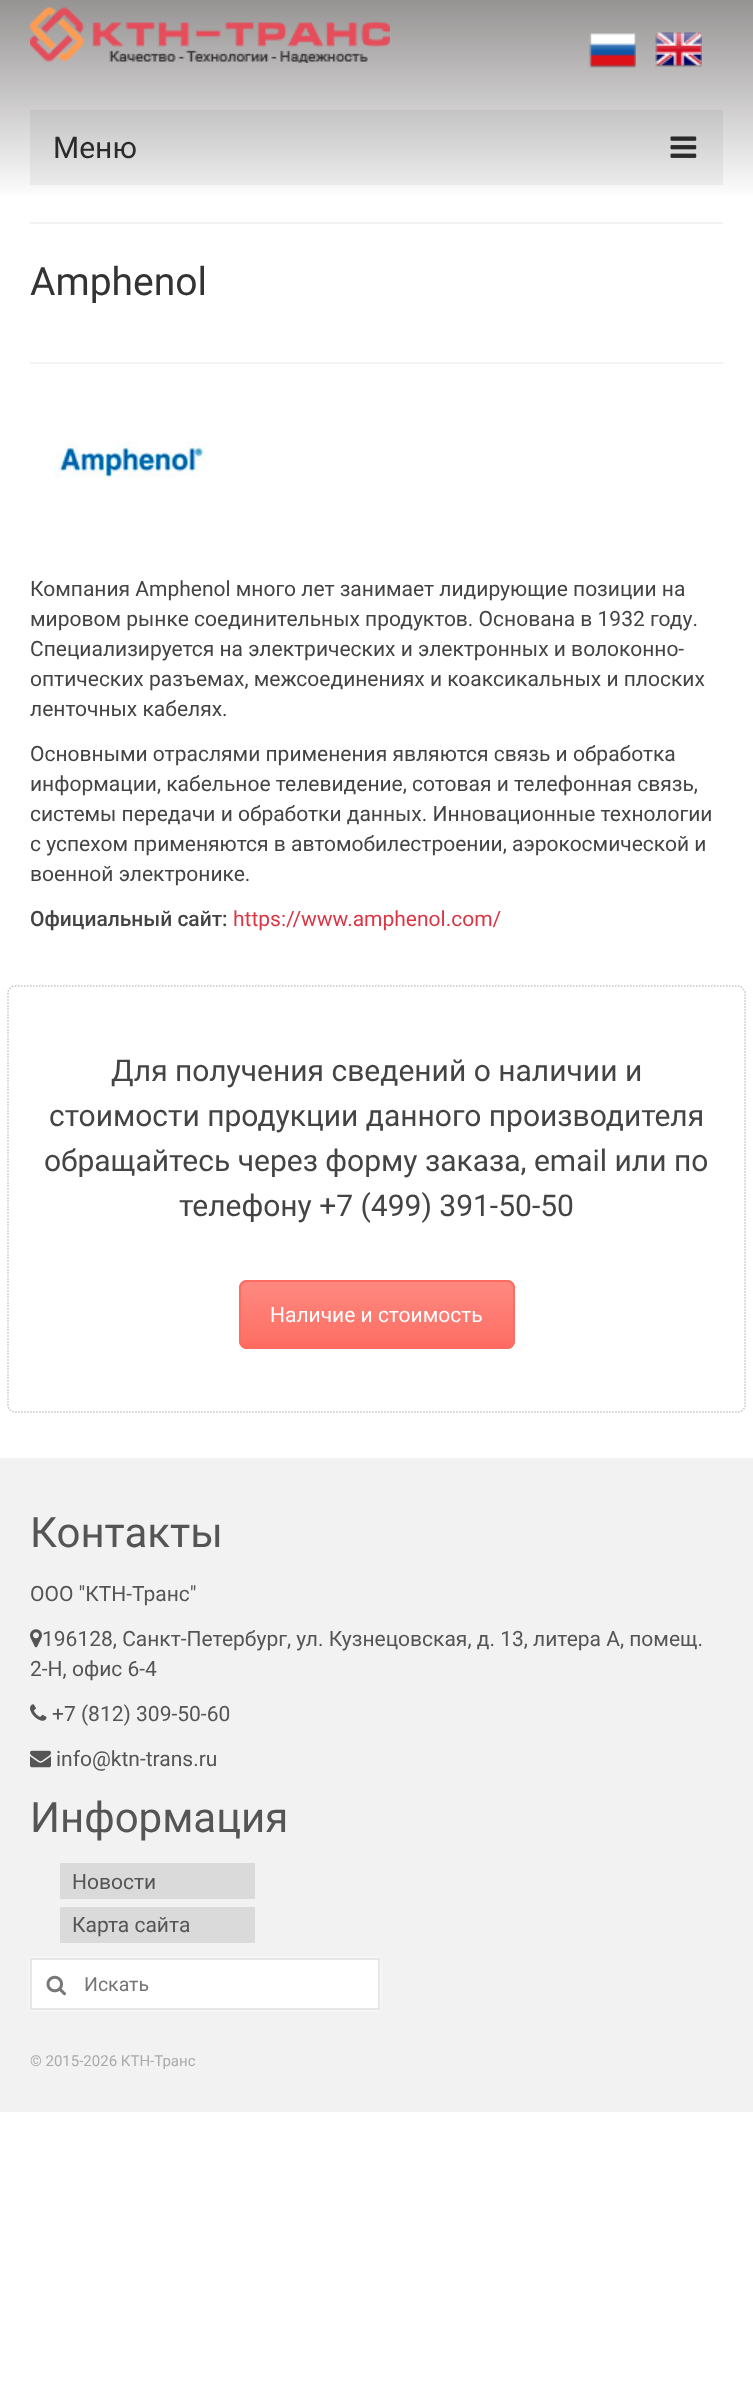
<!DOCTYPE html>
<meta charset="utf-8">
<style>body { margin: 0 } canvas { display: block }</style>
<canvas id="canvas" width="753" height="2401"></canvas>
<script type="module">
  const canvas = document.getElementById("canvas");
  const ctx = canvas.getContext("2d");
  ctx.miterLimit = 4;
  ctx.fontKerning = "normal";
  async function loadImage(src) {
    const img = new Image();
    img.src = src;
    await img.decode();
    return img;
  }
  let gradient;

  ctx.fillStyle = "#ffffff";
  ctx.fillRect(0, 0, 753, 2401);
  gradient = ctx.createLinearGradient(377, 0, 377, 200);
  gradient.addColorStop(0, "#969393");
  gradient.addColorStop(1, "#ffffff");
  ctx.fillStyle = gradient;
  ctx.fillRect(0, 0, 753, 195);
  gradient = ctx.createLinearGradient(377, 0, 377, 200);
  gradient.addColorStop(0, "#8f8c8c");
  gradient.addColorStop(1, "#f2f2f2");
  ctx.fillStyle = gradient;
  ctx.fillRect(30, 110, 693, 75);
  ctx.drawImage(await loadImage("img1.png"), 30, 7, 360, 56);
  ctx.drawImage(await loadImage("img2.png"), 589, 33, 47, 35);
  ctx.drawImage(await loadImage("img3.png"), 655, 32, 47, 35);
  ctx.font = "30px Roboto";
  ctx.fillStyle = "#2b2b2b";
  ctx.fillText("Меню", 53, 158);
  ctx.drawImage(await loadImage("img4.png"), 670, 136, 27, 22);
  ctx.fillStyle = "#f2f2f2";
  ctx.fillRect(30, 222, 693, 2);
  ctx.fillRect(30, 362, 693, 2);
  ctx.font = "39px Roboto";
  ctx.fillStyle = "#333333";
  ctx.fillText("Amphenol", 30, 295);
  ctx.drawImage(await loadImage("img5.png"), 54, 441, 156, 37);
  ctx.font = "21px Roboto";
  ctx.fillStyle = "#444444";
  ctx.fillText("Компания Amphenol много лет занимает лидирующие позиции на", 30, 596);
  ctx.fillText("мировом рынке соединительных продуктов. Основана в 1932 году.", 30, 626);
  ctx.fillText("Специализируется на электрических и электронных и волоконно-", 30, 656);
  ctx.fillText("оптических разъемах, межсоединениях и коаксикальных и плоских", 30, 686);
  ctx.fillText("ленточных кабелях.", 30, 716);
  ctx.fillText("Основными отраслями применения являются связь и обработка", 30, 761);
  ctx.fillText("информации, кабельное телевидение, сотовая и телефонная связь,", 30, 791);
  ctx.fillText("системы передачи и обработки данных. Инновационные технологии", 30, 821);
  ctx.fillText("с успехом применяются в автомобилестроении, аэрокосмической и", 30, 851);
  ctx.fillText("военной электронике.", 30, 881);
  ctx.font = "500 21px Roboto";
  ctx.fillText("Официальный сайт:", 30, 926);
  ctx.font = "21px Roboto";
  ctx.fillStyle = "#db3646";
  ctx.fillText("https://www.amphenol.com/", 233, 926);
  ctx.beginPath();
  ctx.moveTo(15, 986);
  ctx.lineTo(738, 986);
  ctx.bezierCurveTo(741.5, 986, 745, 989.5, 745, 993);
  ctx.lineTo(745, 1405.5);
  ctx.bezierCurveTo(745, 1409, 741.5, 1412, 738, 1412);
  ctx.lineTo(15, 1412);
  ctx.bezierCurveTo(11.5, 1412, 8, 1409, 8, 1405.5);
  ctx.lineTo(8, 993);
  ctx.bezierCurveTo(8, 989.5, 11.5, 986, 15, 986);
  ctx.closePath();
  ctx.strokeStyle = "#c4c4c4";
  ctx.lineWidth = 1.5;
  ctx.setLineDash([1.5, 1.5]);
  ctx.stroke();
  ctx.font = "30px Roboto";
  ctx.fillStyle = "#444444";
  ctx.fillText("Для получения сведений о наличии и", 111, 1081);
  ctx.fillText("стоимости продукции данного производителя", 49, 1126);
  ctx.fillText("обращайтесь через форму заказа, email или по", 44, 1171);
  ctx.fillText("телефону +7 (499) 391-50-50", 179, 1216);
  ctx.fillStyle = "#fe6c61";
  ctx.beginPath();
  ctx.roundRect(239, 1280, 276, 69, 8);
  ctx.fill();
  ctx.save();
  ctx.beginPath();
  ctx.roundRect(239, 1280, 276, 69, 8);
  ctx.clip();
  gradient = ctx.createLinearGradient(377, 1281, 377, 1347);
  gradient.addColorStop(0, "rgba(255, 255, 255, 0.2)");
  gradient.addColorStop(1, "rgba(255, 255, 255, 0.01)");
  ctx.fillStyle = gradient;
  ctx.fillRect(239, 1281, 276, 62);
  ctx.restore();
  ctx.beginPath();
  ctx.roundRect(240, 1281, 274, 67, 7);
  ctx.strokeStyle = "#fe6c61";
  ctx.lineWidth = 2;
  ctx.setLineDash([]);
  ctx.stroke();
  ctx.font = "21px Roboto";
  ctx.fillStyle = "#ffffff";
  ctx.fillText("Наличие и стоимость", 270, 1322);
  ctx.fillStyle = "#f2f2f2";
  ctx.fillRect(0, 1458, 753, 654);
  ctx.font = "42px Roboto";
  ctx.fillStyle = "#555555";
  ctx.fillText("Контакты", 30, 1547);
  ctx.font = "21px Roboto";
  ctx.fillText("ООО \"КТН-Транс\"", 30, 1601);
  ctx.drawImage(await loadImage("img6.png"), 30, 1629, 12, 19);
  ctx.fillText("196128, Санкт-Петербург, ул. Кузнецовская, д. 13, литера А, помещ.", 42, 1646);
  ctx.fillText("2-Н, офис 6-4", 30, 1676);
  ctx.drawImage(await loadImage("img7.png"), 30, 1704, 17, 17);
  ctx.fillText("+7 (812) 309-50-60", 52, 1721);
  ctx.drawImage(await loadImage("img8.png"), 30, 1750, 21, 18);
  ctx.fillText("info@ktn-trans.ru", 56, 1766);
  ctx.font = "42px Roboto";
  ctx.fillText("Информация", 30, 1832);
  ctx.fillStyle = "#dadada";
  ctx.fillRect(60, 1863, 195, 36);
  ctx.font = "21px Roboto";
  ctx.fillStyle = "#555555";
  ctx.fillText("Новости", 72, 1889);
  ctx.fillStyle = "#dadada";
  ctx.fillRect(60, 1907, 195, 36);
  ctx.fillStyle = "#555555";
  ctx.fillText("Карта сайта", 72, 1932);
  ctx.fillStyle = "#ffffff";
  ctx.filter = "blur(2px)";
  ctx.beginPath();
  ctx.rect(30, 1958, 350, 52);
  ctx.fill();
  ctx.filter = "none";
  ctx.strokeStyle = "#e7e7e7";
  ctx.strokeRect(31, 1959, 348, 50);
  ctx.drawImage(await loadImage("img9.png"), 46, 1975, 20, 21);
  ctx.font = "19.5px Roboto";
  ctx.fillStyle = "#757575";
  ctx.fillText("Искать", 84, 1991);
  ctx.font = "15px Roboto";
  ctx.fillStyle = "#aaaaaa";
  ctx.fillText("© 2015-2026 КТН-Транс", 30, 2066);
</script>
